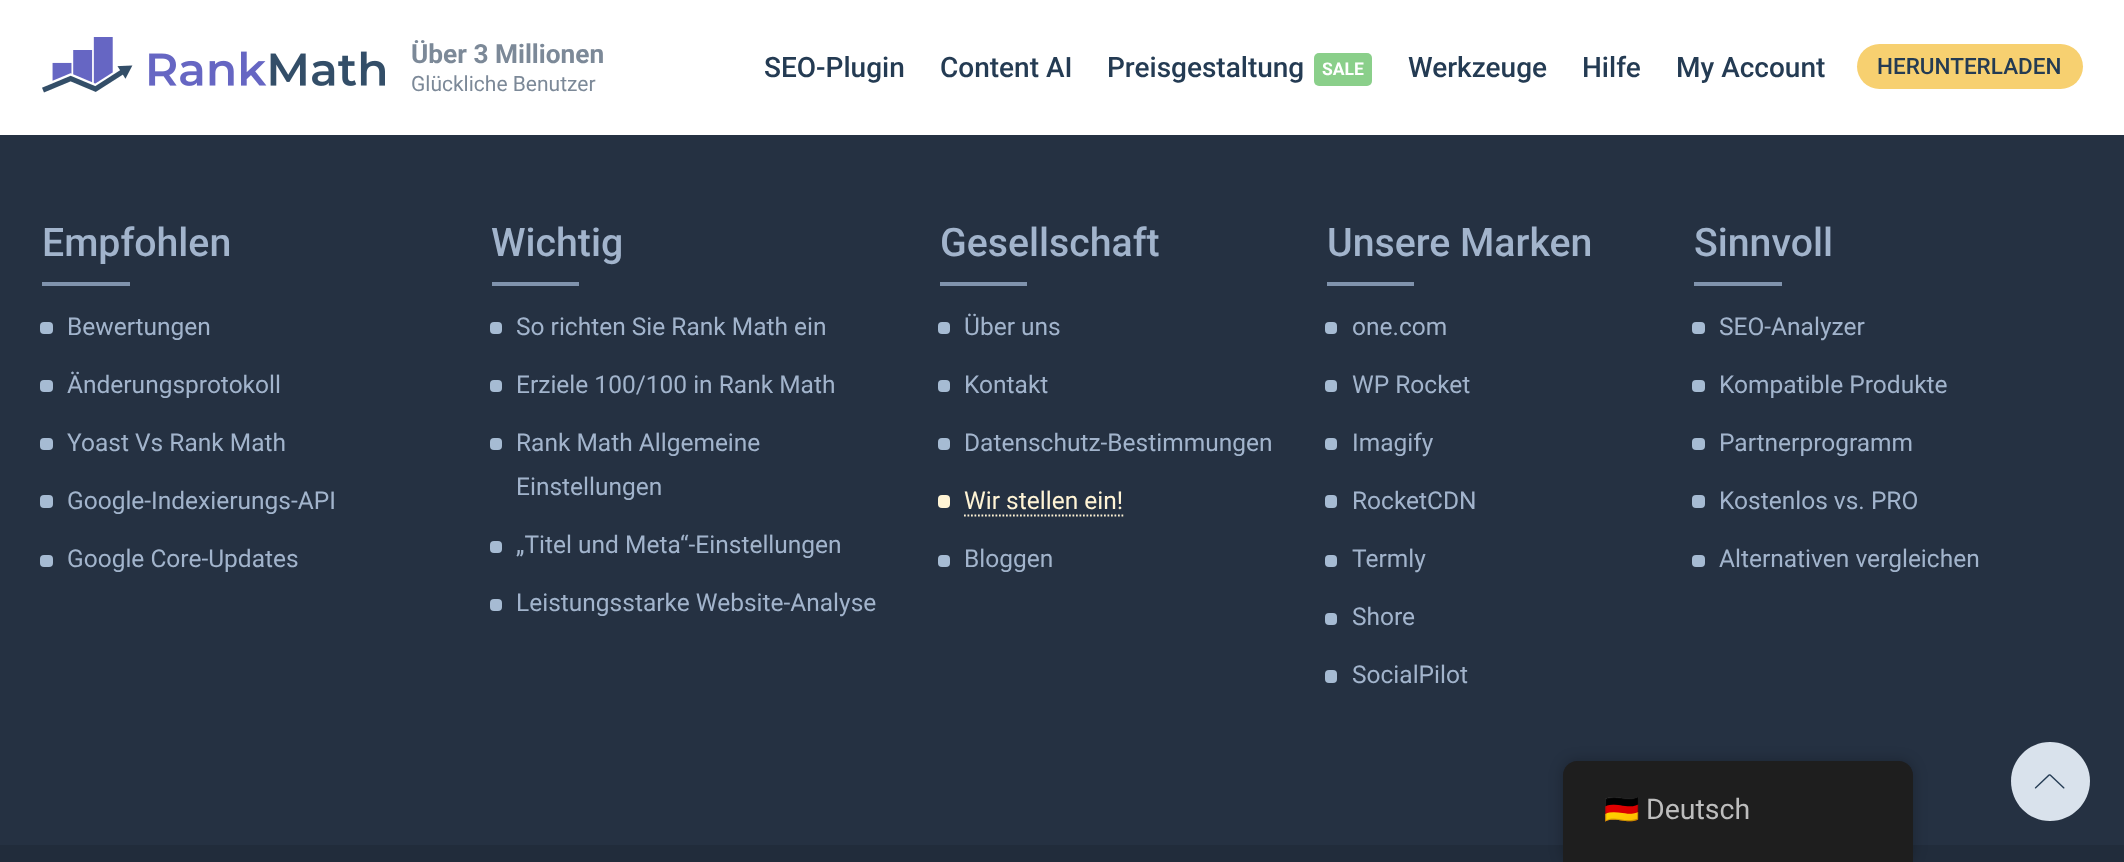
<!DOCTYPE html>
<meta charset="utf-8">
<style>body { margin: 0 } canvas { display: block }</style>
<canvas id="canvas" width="2124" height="862"></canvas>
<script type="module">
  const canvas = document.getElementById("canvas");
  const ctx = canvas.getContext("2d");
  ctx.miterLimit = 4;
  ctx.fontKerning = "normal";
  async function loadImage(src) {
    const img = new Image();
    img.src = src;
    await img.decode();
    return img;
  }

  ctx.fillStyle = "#253142";
  ctx.fillRect(0, 0, 2124, 862);
  ctx.fillStyle = "#ffffff";
  ctx.fillRect(0, 0, 2124, 135);
  ctx.drawImage(await loadImage("img1.png"), 42, 37, 343, 56);
  ctx.font = "bold 26.25px Roboto";
  ctx.fillStyle = "#7c8998";
  ctx.fillText("Über 3 Millionen", 411, 63);
  ctx.font = "21px Roboto";
  ctx.fillText("Glückliche Benutzer", 411, 91);
  ctx.font = "500 28px Roboto";
  ctx.fillStyle = "#243b53";
  ctx.fillText("SEO-Plugin", 764, 77);
  ctx.fillText("Content AI", 940, 77);
  ctx.fillText("Preisgestaltung", 1107, 77);
  ctx.fillStyle = "#8acf8a";
  ctx.beginPath();
  ctx.roundRect(1314, 53, 58, 33, 5);
  ctx.fill();
  ctx.font = "bold 17.5px Roboto";
  ctx.fillStyle = "#ffffff";
  ctx.fillText("SALE", 1322, 75);
  ctx.font = "500 28px Roboto";
  ctx.fillStyle = "#243b53";
  ctx.fillText("Werkzeuge", 1408, 77);
  ctx.fillText("Hilfe", 1582, 77);
  ctx.fillText("My Account", 1676, 77);
  ctx.fillStyle = "#f7d070";
  ctx.beginPath();
  ctx.roundRect(1857, 44, 226, 45, 22.5);
  ctx.fill();
  ctx.font = "500 22.5px Roboto";
  ctx.fillStyle = "#243b53";
  ctx.fillText("HERUNTERLADEN", 1877, 74);
  ctx.font = "500 39.25px Roboto";
  ctx.fillStyle = "#a2b4cc";
  ctx.fillText("Empfohlen", 42, 256);
  ctx.fillStyle = "#8093ad";
  ctx.fillRect(42, 282, 88, 4);
  ctx.fillStyle = "#a6bbd3";
  ctx.beginPath();
  ctx.roundRect(40, 322, 13, 12, 4);
  ctx.fill();
  ctx.font = "24.5px Roboto";
  ctx.fillStyle = "#a2b4cc";
  ctx.fillText("Bewertungen", 67, 335);
  ctx.fillStyle = "#a6bbd3";
  ctx.beginPath();
  ctx.roundRect(40, 380, 13, 12, 4);
  ctx.fill();
  ctx.fillStyle = "#a2b4cc";
  ctx.fillText("Änderungsprotokoll", 67, 393);
  ctx.fillStyle = "#a6bbd3";
  ctx.beginPath();
  ctx.roundRect(40, 438, 13, 12, 4);
  ctx.fill();
  ctx.fillStyle = "#a2b4cc";
  ctx.fillText("Yoast Vs Rank Math", 67, 451);
  ctx.fillStyle = "#a6bbd3";
  ctx.beginPath();
  ctx.roundRect(40, 495, 13, 13, 4);
  ctx.fill();
  ctx.fillStyle = "#a2b4cc";
  ctx.fillText("Google-Indexierungs-API", 67, 509);
  ctx.fillStyle = "#a6bbd3";
  ctx.beginPath();
  ctx.roundRect(40, 555, 13, 12, 4);
  ctx.fill();
  ctx.fillStyle = "#a2b4cc";
  ctx.fillText("Google Core-Updates", 67, 567);
  ctx.font = "500 39.25px Roboto";
  ctx.fillText("Wichtig", 491, 256);
  ctx.fillStyle = "#8093ad";
  ctx.fillRect(492, 282, 87, 4);
  ctx.fillStyle = "#a6bbd3";
  ctx.beginPath();
  ctx.roundRect(490, 322, 12, 12, 4);
  ctx.fill();
  ctx.font = "24.5px Roboto";
  ctx.fillStyle = "#a2b4cc";
  ctx.fillText("So richten Sie Rank Math ein", 516, 335);
  ctx.fillStyle = "#a6bbd3";
  ctx.beginPath();
  ctx.roundRect(490, 380, 12, 12, 4);
  ctx.fill();
  ctx.fillStyle = "#a2b4cc";
  ctx.fillText("Erziele 100/100 in Rank Math", 516, 393);
  ctx.fillStyle = "#a6bbd3";
  ctx.beginPath();
  ctx.roundRect(490, 438, 12, 12, 4);
  ctx.fill();
  ctx.fillStyle = "#a2b4cc";
  ctx.fillText("Rank Math Allgemeine", 516, 451);
  ctx.fillText("Einstellungen", 516, 495);
  ctx.fillStyle = "#a6bbd3";
  ctx.beginPath();
  ctx.roundRect(490, 541, 12, 12, 4);
  ctx.fill();
  ctx.fillStyle = "#a2b4cc";
  ctx.fillText("„Titel und Meta“-Einstellungen", 516, 553);
  ctx.fillStyle = "#a6bbd3";
  ctx.beginPath();
  ctx.roundRect(490, 599, 12, 12, 4);
  ctx.fill();
  ctx.fillStyle = "#a2b4cc";
  ctx.fillText("Leistungsstarke Website-Analyse", 516, 611);
  ctx.font = "500 39.25px Roboto";
  ctx.fillText("Gesellschaft", 940, 256);
  ctx.fillStyle = "#8093ad";
  ctx.fillRect(940, 282, 87, 4);
  ctx.fillStyle = "#a6bbd3";
  ctx.beginPath();
  ctx.roundRect(938, 322, 12, 12, 4);
  ctx.fill();
  ctx.font = "24.5px Roboto";
  ctx.fillStyle = "#a2b4cc";
  ctx.fillText("Über uns", 964, 335);
  ctx.fillStyle = "#a6bbd3";
  ctx.beginPath();
  ctx.roundRect(938, 380, 12, 12, 4);
  ctx.fill();
  ctx.fillStyle = "#a2b4cc";
  ctx.fillText("Kontakt", 964, 393);
  ctx.fillStyle = "#a6bbd3";
  ctx.beginPath();
  ctx.roundRect(938, 438, 12, 12, 4);
  ctx.fill();
  ctx.fillStyle = "#a2b4cc";
  ctx.fillText("Datenschutz-Bestimmungen", 964, 451);
  ctx.fillStyle = "#fff4d5";
  ctx.beginPath();
  ctx.roundRect(938, 495, 12, 13, 4);
  ctx.fill();
  ctx.fillText("Wir stellen ein!", 964, 509);
  ctx.beginPath();
  ctx.moveTo(964, 515.5);
  ctx.lineTo(1123.5, 515.5);
  ctx.strokeStyle = "#fff4d5";
  ctx.lineWidth = 1.8;
  ctx.setLineDash([1.75, 1.75]);
  ctx.stroke();
  ctx.fillStyle = "#a6bbd3";
  ctx.beginPath();
  ctx.roundRect(938, 555, 12, 12, 4);
  ctx.fill();
  ctx.fillStyle = "#a2b4cc";
  ctx.fillText("Bloggen", 964, 567);
  ctx.font = "500 39.25px Roboto";
  ctx.fillText("Unsere Marken", 1327, 256);
  ctx.fillStyle = "#8093ad";
  ctx.fillRect(1327, 282, 87, 4);
  ctx.fillStyle = "#a6bbd3";
  ctx.beginPath();
  ctx.roundRect(1325, 322, 12, 12, 4);
  ctx.fill();
  ctx.font = "24.5px Roboto";
  ctx.fillStyle = "#a2b4cc";
  ctx.fillText("one.com", 1352, 335);
  ctx.fillStyle = "#a6bbd3";
  ctx.beginPath();
  ctx.roundRect(1325, 380, 12, 12, 4);
  ctx.fill();
  ctx.fillStyle = "#a2b4cc";
  ctx.fillText("WP Rocket", 1352, 393);
  ctx.fillStyle = "#a6bbd3";
  ctx.beginPath();
  ctx.roundRect(1325, 438, 12, 12, 4);
  ctx.fill();
  ctx.fillStyle = "#a2b4cc";
  ctx.fillText("Imagify", 1352, 451);
  ctx.fillStyle = "#a6bbd3";
  ctx.beginPath();
  ctx.roundRect(1325, 495, 12, 13, 4);
  ctx.fill();
  ctx.fillStyle = "#a2b4cc";
  ctx.fillText("RocketCDN", 1352, 509);
  ctx.fillStyle = "#a6bbd3";
  ctx.beginPath();
  ctx.roundRect(1325, 555, 12, 12, 4);
  ctx.fill();
  ctx.fillStyle = "#a2b4cc";
  ctx.fillText("Termly", 1352, 567);
  ctx.fillStyle = "#a6bbd3";
  ctx.beginPath();
  ctx.roundRect(1325, 613, 12, 12, 4);
  ctx.fill();
  ctx.fillStyle = "#a2b4cc";
  ctx.fillText("Shore", 1352, 625);
  ctx.fillStyle = "#a6bbd3";
  ctx.beginPath();
  ctx.roundRect(1325, 670, 12, 13, 4);
  ctx.fill();
  ctx.fillStyle = "#a2b4cc";
  ctx.fillText("SocialPilot", 1352, 683);
  ctx.font = "500 39.25px Roboto";
  ctx.fillText("Sinnvoll", 1694, 256);
  ctx.fillStyle = "#8093ad";
  ctx.fillRect(1694, 282, 88, 4);
  ctx.fillStyle = "#a6bbd3";
  ctx.beginPath();
  ctx.roundRect(1692, 322, 13, 12, 4);
  ctx.fill();
  ctx.font = "24.5px Roboto";
  ctx.fillStyle = "#a2b4cc";
  ctx.fillText("SEO-Analyzer", 1719, 335);
  ctx.fillStyle = "#a6bbd3";
  ctx.beginPath();
  ctx.roundRect(1692, 380, 13, 12, 4);
  ctx.fill();
  ctx.fillStyle = "#a2b4cc";
  ctx.fillText("Kompatible Produkte", 1719, 393);
  ctx.fillStyle = "#a6bbd3";
  ctx.beginPath();
  ctx.roundRect(1692, 438, 13, 12, 4);
  ctx.fill();
  ctx.fillStyle = "#a2b4cc";
  ctx.fillText("Partnerprogramm", 1719, 451);
  ctx.fillStyle = "#a6bbd3";
  ctx.beginPath();
  ctx.roundRect(1692, 495, 13, 13, 4);
  ctx.fill();
  ctx.fillStyle = "#a2b4cc";
  ctx.fillText("Kostenlos vs. PRO", 1719, 509);
  ctx.fillStyle = "#a6bbd3";
  ctx.beginPath();
  ctx.roundRect(1692, 555, 13, 12, 4);
  ctx.fill();
  ctx.fillStyle = "#a2b4cc";
  ctx.fillText("Alternativen vergleichen", 1719, 567);
  ctx.fillStyle = "#d9e2ec";
  ctx.beginPath();
  ctx.moveTo(2011, 781);
  ctx.bezierCurveTo(2011, 760, 2028, 742, 2050, 742);
  ctx.bezierCurveTo(2072, 742, 2090, 760, 2090, 781);
  ctx.bezierCurveTo(2090, 803, 2072, 821, 2050, 821);
  ctx.bezierCurveTo(2028, 821, 2011, 803, 2011, 781);
  ctx.closePath();
  ctx.fill();
  ctx.drawImage(await loadImage("img2.png"), 2034, 774, 31, 15);
  ctx.fillStyle = "#212c3b";
  ctx.fillRect(0, 845, 2124, 17);
  ctx.fillStyle = "rgba(0, 0, 0, 0.25)";
  ctx.filter = "blur(7px)";
  ctx.beginPath();
  ctx.roundRect(1563, 761, 350, 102, 14);
  ctx.fill();
  ctx.filter = "none";
  ctx.fillStyle = "#1e1e1e";
  ctx.beginPath();
  ctx.moveTo(1577, 761);
  ctx.lineTo(1899, 761);
  ctx.bezierCurveTo(1906.5, 761, 1913, 767.5, 1913, 775);
  ctx.lineTo(1913, 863);
  ctx.lineTo(1563, 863);
  ctx.lineTo(1563, 775);
  ctx.bezierCurveTo(1563, 767.5, 1569.5, 761, 1577, 761);
  ctx.closePath();
  ctx.fill();
  ctx.font = "28.5px Noto Color Emoji";
  ctx.fillStyle = "#bdbdbd";
  ctx.fillText("🇩🇪", 1604, 819);
  ctx.font = "28.5px Roboto";
  ctx.fillText("Deutsch", 1646, 819);
</script>
